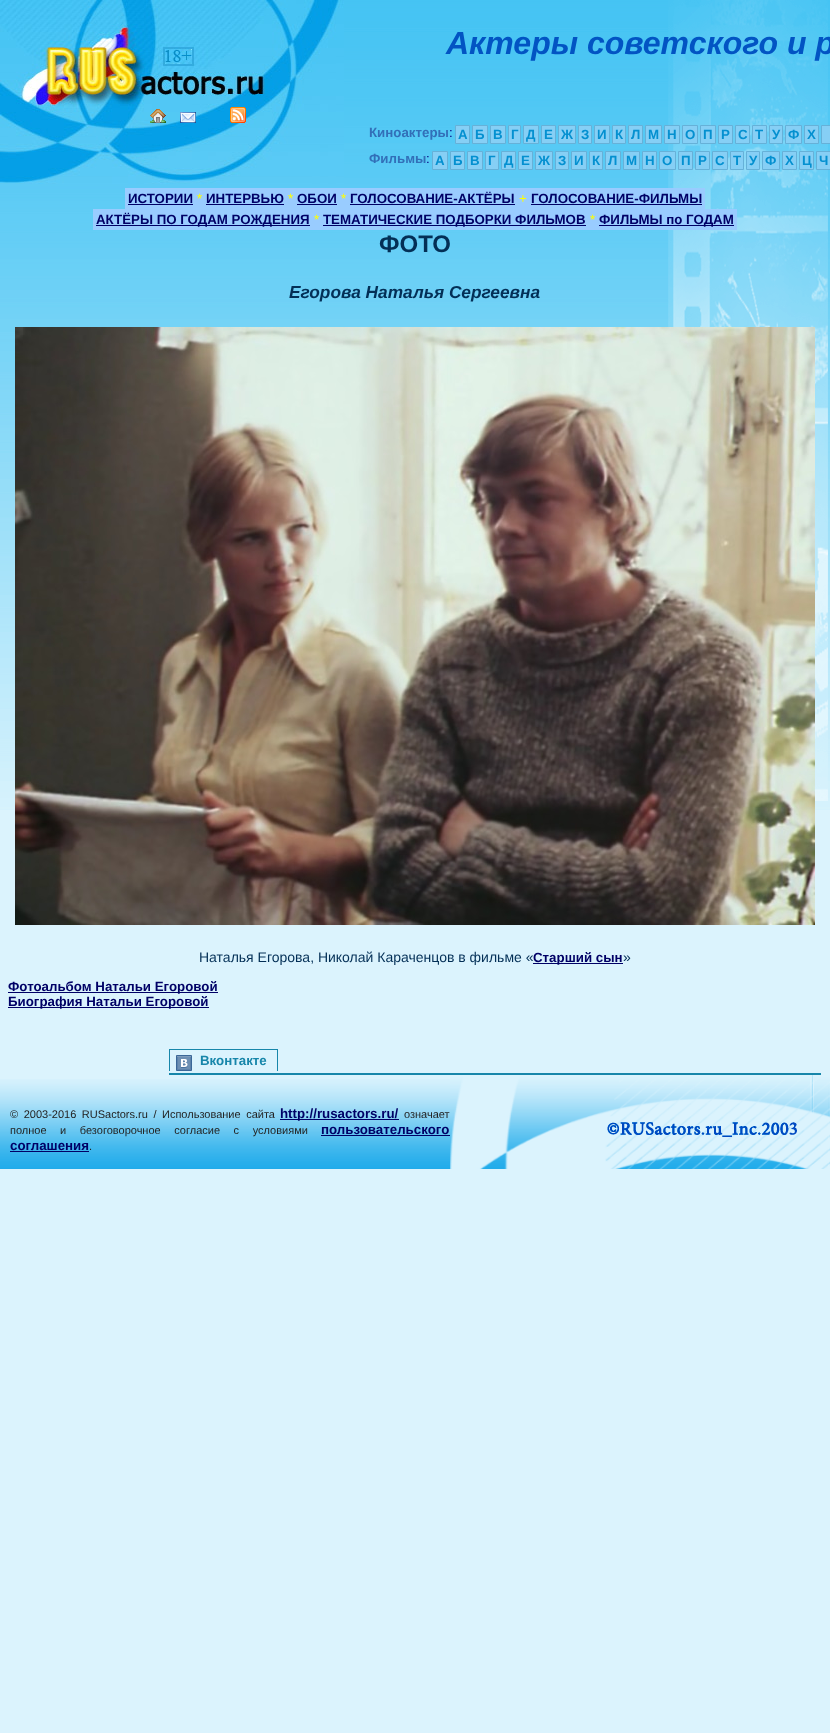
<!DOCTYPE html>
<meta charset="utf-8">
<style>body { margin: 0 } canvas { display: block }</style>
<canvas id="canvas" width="830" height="1733"></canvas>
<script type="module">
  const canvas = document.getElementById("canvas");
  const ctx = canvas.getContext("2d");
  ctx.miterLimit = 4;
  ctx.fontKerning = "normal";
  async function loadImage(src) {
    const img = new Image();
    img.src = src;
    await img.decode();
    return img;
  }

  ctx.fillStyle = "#dbf3fd";
  ctx.fillRect(0, 0, 830, 1733);
  ctx.drawImage(await loadImage("img1.png"), 0, 0, 830, 810);
  ctx.drawImage(await loadImage("img2.png"), 668, 0, 160, 801);
  ctx.drawImage(await loadImage("img3.png"), 0, 0, 344, 184);
  ctx.drawImage(await loadImage("img4.png"), 150, 109, 16, 14);
  ctx.drawImage(await loadImage("img5.png"), 180, 112, 16, 11);
  ctx.drawImage(await loadImage("img6.png"), 230, 107, 16, 16);
  ctx.font = "italic bold 32px Liberation Sans";
  ctx.fillStyle = "#0254c3";
  ctx.fillText("Актеры советского и р", 446, 54);
  ctx.font = "bold 13.3px Liberation Sans";
  ctx.fillStyle = "#326fb8";
  ctx.fillText("Киноактеры", 369, 137);
  ctx.font = "13.3px Liberation Sans";
  ctx.fillStyle = "#000080";
  ctx.fillText(":", 449, 137);
  ctx.fillStyle = "#86cff5";
  ctx.beginPath();
  ctx.rect(455.5, 125.5, 14, 18);
  ctx.fill();
  ctx.strokeStyle = "#66b1d8";
  ctx.stroke();
  ctx.font = "bold 13.3px Liberation Sans";
  ctx.fillStyle = "#0490d0";
  ctx.fillText("А", 458, 139);
  ctx.fillStyle = "#86cff5";
  ctx.beginPath();
  ctx.rect(472.5, 125.5, 15, 18);
  ctx.fill();
  ctx.stroke();
  ctx.fillStyle = "#0490d0";
  ctx.fillText("Б", 475, 139);
  ctx.fillStyle = "#86cff5";
  ctx.beginPath();
  ctx.rect(490.5, 125.5, 15, 18);
  ctx.fill();
  ctx.stroke();
  ctx.fillStyle = "#0490d0";
  ctx.fillText("В", 493, 139);
  ctx.fillStyle = "#86cff5";
  ctx.beginPath();
  ctx.rect(508.5, 125.5, 12, 18);
  ctx.fill();
  ctx.stroke();
  ctx.fillStyle = "#0490d0";
  ctx.fillText("Г", 511, 139);
  ctx.fillStyle = "#86cff5";
  ctx.beginPath();
  ctx.rect(523.5, 125.5, 15, 18);
  ctx.fill();
  ctx.stroke();
  ctx.fillStyle = "#0490d0";
  ctx.fillText("Д", 526, 139);
  ctx.fillStyle = "#86cff5";
  ctx.beginPath();
  ctx.rect(541.5, 125.5, 14, 18);
  ctx.fill();
  ctx.stroke();
  ctx.fillStyle = "#0490d0";
  ctx.fillText("Е", 544, 139);
  ctx.fillStyle = "#86cff5";
  ctx.beginPath();
  ctx.rect(558.5, 125.5, 17, 18);
  ctx.fill();
  ctx.stroke();
  ctx.fillStyle = "#0490d0";
  ctx.fillText("Ж", 561, 139);
  ctx.fillStyle = "#86cff5";
  ctx.beginPath();
  ctx.rect(578.5, 125.5, 13, 18);
  ctx.fill();
  ctx.stroke();
  ctx.fillStyle = "#0490d0";
  ctx.fillText("З", 581, 139);
  ctx.fillStyle = "#86cff5";
  ctx.beginPath();
  ctx.rect(594.5, 125.5, 15, 18);
  ctx.fill();
  ctx.stroke();
  ctx.fillStyle = "#0490d0";
  ctx.fillText("И", 597, 139);
  ctx.fillStyle = "#86cff5";
  ctx.beginPath();
  ctx.rect(612.5, 125.5, 13, 18);
  ctx.fill();
  ctx.stroke();
  ctx.fillStyle = "#0490d0";
  ctx.fillText("К", 615, 139);
  ctx.fillStyle = "#86cff5";
  ctx.beginPath();
  ctx.rect(628.5, 125.5, 14, 18);
  ctx.fill();
  ctx.stroke();
  ctx.fillStyle = "#0490d0";
  ctx.fillText("Л", 631, 139);
  ctx.fillStyle = "#86cff5";
  ctx.beginPath();
  ctx.rect(645.5, 125.5, 16, 18);
  ctx.fill();
  ctx.stroke();
  ctx.fillStyle = "#0490d0";
  ctx.fillText("М", 648, 139);
  ctx.fillStyle = "#86cff5";
  ctx.beginPath();
  ctx.rect(664.5, 125.5, 15, 18);
  ctx.fill();
  ctx.stroke();
  ctx.fillStyle = "#0490d0";
  ctx.fillText("Н", 667, 139);
  ctx.fillStyle = "#86cff5";
  ctx.beginPath();
  ctx.rect(682.5, 125.5, 15, 18);
  ctx.fill();
  ctx.stroke();
  ctx.fillStyle = "#0490d0";
  ctx.fillText("О", 685, 139);
  ctx.fillStyle = "#86cff5";
  ctx.beginPath();
  ctx.rect(700.5, 125.5, 15, 18);
  ctx.fill();
  ctx.stroke();
  ctx.fillStyle = "#0490d0";
  ctx.fillText("П", 703, 139);
  ctx.fillStyle = "#86cff5";
  ctx.beginPath();
  ctx.rect(718.5, 125.5, 14, 18);
  ctx.fill();
  ctx.stroke();
  ctx.fillStyle = "#0490d0";
  ctx.fillText("Р", 721, 139);
  ctx.fillStyle = "#86cff5";
  ctx.beginPath();
  ctx.rect(735.5, 125.5, 14, 18);
  ctx.fill();
  ctx.stroke();
  ctx.fillStyle = "#0490d0";
  ctx.fillText("С", 738, 139);
  ctx.fillStyle = "#86cff5";
  ctx.beginPath();
  ctx.rect(752.5, 125.5, 14, 18);
  ctx.fill();
  ctx.stroke();
  ctx.fillStyle = "#0490d0";
  ctx.fillText("Т", 755, 139);
  ctx.fillStyle = "#86cff5";
  ctx.beginPath();
  ctx.rect(769.5, 125.5, 13, 18);
  ctx.fill();
  ctx.stroke();
  ctx.fillStyle = "#0490d0";
  ctx.fillText("У", 772, 139);
  ctx.fillStyle = "#86cff5";
  ctx.beginPath();
  ctx.rect(785.5, 125.5, 16, 18);
  ctx.fill();
  ctx.stroke();
  ctx.fillStyle = "#0490d0";
  ctx.fillText("Ф", 788, 139);
  ctx.fillStyle = "#86cff5";
  ctx.beginPath();
  ctx.rect(804.5, 125.5, 14, 18);
  ctx.fill();
  ctx.stroke();
  ctx.fillStyle = "#0490d0";
  ctx.fillText("Х", 807, 139);
  ctx.fillStyle = "#86cff5";
  ctx.beginPath();
  ctx.rect(821.5, 125.5, 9, 18);
  ctx.fill();
  ctx.stroke();
  ctx.fillStyle = "#326fb8";
  ctx.fillText("Фильмы", 369, 163);
  ctx.font = "13.3px Liberation Sans";
  ctx.fillStyle = "#000080";
  ctx.fillText(":", 426, 163);
  ctx.fillStyle = "#86cff5";
  ctx.beginPath();
  ctx.rect(432.5, 151.5, 15, 18);
  ctx.fill();
  ctx.stroke();
  ctx.font = "bold 13.3px Liberation Sans";
  ctx.fillStyle = "#0490d0";
  ctx.fillText("А", 435, 165);
  ctx.fillStyle = "#86cff5";
  ctx.beginPath();
  ctx.rect(450.5, 151.5, 14, 18);
  ctx.fill();
  ctx.stroke();
  ctx.fillStyle = "#0490d0";
  ctx.fillText("Б", 453, 165);
  ctx.fillStyle = "#86cff5";
  ctx.beginPath();
  ctx.rect(467.5, 151.5, 15, 18);
  ctx.fill();
  ctx.stroke();
  ctx.fillStyle = "#0490d0";
  ctx.fillText("В", 470, 165);
  ctx.fillStyle = "#86cff5";
  ctx.beginPath();
  ctx.rect(485.5, 151.5, 13, 18);
  ctx.fill();
  ctx.stroke();
  ctx.fillStyle = "#0490d0";
  ctx.fillText("Г", 488, 165);
  ctx.fillStyle = "#86cff5";
  ctx.beginPath();
  ctx.rect(501.5, 151.5, 14, 18);
  ctx.fill();
  ctx.stroke();
  ctx.fillStyle = "#0490d0";
  ctx.fillText("Д", 504, 165);
  ctx.fillStyle = "#86cff5";
  ctx.beginPath();
  ctx.rect(518.5, 151.5, 14, 18);
  ctx.fill();
  ctx.stroke();
  ctx.fillStyle = "#0490d0";
  ctx.fillText("Е", 521, 165);
  ctx.fillStyle = "#86cff5";
  ctx.beginPath();
  ctx.rect(535.5, 151.5, 17, 18);
  ctx.fill();
  ctx.stroke();
  ctx.fillStyle = "#0490d0";
  ctx.fillText("Ж", 538, 165);
  ctx.fillStyle = "#86cff5";
  ctx.beginPath();
  ctx.rect(555.5, 151.5, 13, 18);
  ctx.fill();
  ctx.stroke();
  ctx.fillStyle = "#0490d0";
  ctx.fillText("З", 558, 165);
  ctx.fillStyle = "#86cff5";
  ctx.beginPath();
  ctx.rect(571.5, 151.5, 15, 18);
  ctx.fill();
  ctx.stroke();
  ctx.fillStyle = "#0490d0";
  ctx.fillText("И", 574, 165);
  ctx.fillStyle = "#86cff5";
  ctx.beginPath();
  ctx.rect(589.5, 151.5, 13, 18);
  ctx.fill();
  ctx.stroke();
  ctx.fillStyle = "#0490d0";
  ctx.fillText("К", 592, 165);
  ctx.fillStyle = "#86cff5";
  ctx.beginPath();
  ctx.rect(605.5, 151.5, 15, 18);
  ctx.fill();
  ctx.stroke();
  ctx.fillStyle = "#0490d0";
  ctx.fillText("Л", 608, 165);
  ctx.fillStyle = "#86cff5";
  ctx.beginPath();
  ctx.rect(623.5, 151.5, 16, 18);
  ctx.fill();
  ctx.stroke();
  ctx.fillStyle = "#0490d0";
  ctx.fillText("М", 626, 165);
  ctx.fillStyle = "#86cff5";
  ctx.beginPath();
  ctx.rect(642.5, 151.5, 14, 18);
  ctx.fill();
  ctx.stroke();
  ctx.fillStyle = "#0490d0";
  ctx.fillText("Н", 645, 165);
  ctx.fillStyle = "#86cff5";
  ctx.beginPath();
  ctx.rect(659.5, 151.5, 16, 18);
  ctx.fill();
  ctx.stroke();
  ctx.fillStyle = "#0490d0";
  ctx.fillText("О", 662, 165);
  ctx.fillStyle = "#86cff5";
  ctx.beginPath();
  ctx.rect(678.5, 151.5, 14, 18);
  ctx.fill();
  ctx.stroke();
  ctx.fillStyle = "#0490d0";
  ctx.fillText("П", 681, 165);
  ctx.fillStyle = "#86cff5";
  ctx.beginPath();
  ctx.rect(695.5, 151.5, 14, 18);
  ctx.fill();
  ctx.stroke();
  ctx.fillStyle = "#0490d0";
  ctx.fillText("Р", 698, 165);
  ctx.fillStyle = "#86cff5";
  ctx.beginPath();
  ctx.rect(712.5, 151.5, 15, 18);
  ctx.fill();
  ctx.stroke();
  ctx.fillStyle = "#0490d0";
  ctx.fillText("С", 715, 165);
  ctx.fillStyle = "#86cff5";
  ctx.beginPath();
  ctx.rect(730.5, 151.5, 13, 18);
  ctx.fill();
  ctx.stroke();
  ctx.fillStyle = "#0490d0";
  ctx.fillText("Т", 733, 165);
  ctx.fillStyle = "#86cff5";
  ctx.beginPath();
  ctx.rect(746.5, 151.5, 13, 18);
  ctx.fill();
  ctx.stroke();
  ctx.fillStyle = "#0490d0";
  ctx.fillText("У", 749, 165);
  ctx.fillStyle = "#86cff5";
  ctx.beginPath();
  ctx.rect(762.5, 151.5, 17, 18);
  ctx.fill();
  ctx.stroke();
  ctx.fillStyle = "#0490d0";
  ctx.fillText("Ф", 765, 165);
  ctx.fillStyle = "#86cff5";
  ctx.beginPath();
  ctx.rect(782.5, 151.5, 14, 18);
  ctx.fill();
  ctx.stroke();
  ctx.fillStyle = "#0490d0";
  ctx.fillText("Х", 785, 165);
  ctx.fillStyle = "#86cff5";
  ctx.beginPath();
  ctx.rect(799.5, 151.5, 14, 18);
  ctx.fill();
  ctx.stroke();
  ctx.fillStyle = "#0490d0";
  ctx.fillText("Ц", 802, 165);
  ctx.fillStyle = "#86cff5";
  ctx.beginPath();
  ctx.rect(816.5, 151.5, 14, 18);
  ctx.fill();
  ctx.stroke();
  ctx.fillStyle = "#0490d0";
  ctx.fillText("Ч", 819, 165);
  ctx.fillStyle = "#99ccff";
  ctx.fillRect(125, 188, 580, 21);
  ctx.fillStyle = "#000066";
  ctx.fillText("ИСТОРИИ", 128, 203);
  ctx.fillRect(128, 204, 65, 1);
  ctx.font = "13.3px Liberation Sans";
  ctx.fillStyle = "#ffff00";
  ctx.fillText("*", 197, 203);
  ctx.font = "bold 13.3px Liberation Sans";
  ctx.fillStyle = "#000066";
  ctx.fillText("ИНТЕРВЬЮ", 206, 203);
  ctx.fillRect(206, 204, 78, 1);
  ctx.font = "13.3px Liberation Sans";
  ctx.fillStyle = "#ffff00";
  ctx.fillText("*", 288, 203);
  ctx.font = "bold 13.3px Liberation Sans";
  ctx.fillStyle = "#000066";
  ctx.fillText("ОБОИ", 297, 203);
  ctx.fillRect(297, 204, 40, 1);
  ctx.font = "13.3px Liberation Sans";
  ctx.fillStyle = "#ffff00";
  ctx.fillText("*", 341, 203);
  ctx.font = "bold 13.3px Liberation Sans";
  ctx.fillStyle = "#000066";
  ctx.fillText("ГОЛОСОВАНИЕ-АКТЁРЫ", 350, 203);
  ctx.fillRect(350, 204, 165, 1);
  ctx.font = "13.3px Liberation Sans";
  ctx.fillStyle = "#ffff00";
  ctx.fillText("+", 519, 203);
  ctx.font = "bold 13.3px Liberation Sans";
  ctx.fillStyle = "#000066";
  ctx.fillText("ГОЛОСОВАНИЕ-ФИЛЬМЫ", 531, 203);
  ctx.fillRect(531, 204, 171, 1);
  ctx.fillStyle = "#99ccff";
  ctx.fillRect(93, 209, 644, 21);
  ctx.fillStyle = "#000066";
  ctx.fillRect(96, 225, 214, 1);
  ctx.fillText("АКТЁРЫ ПО ГОДАМ РОЖДЕНИЯ", 96, 224);
  ctx.font = "13.3px Liberation Sans";
  ctx.fillStyle = "#ffff00";
  ctx.fillText("*", 314, 224);
  ctx.fillStyle = "#000066";
  ctx.fillRect(323, 225, 263, 1);
  ctx.font = "bold 13.3px Liberation Sans";
  ctx.fillText("ТЕМАТИЧЕСКИЕ ПОДБОРКИ ФИЛЬМОВ", 323, 224);
  ctx.font = "13.3px Liberation Sans";
  ctx.fillStyle = "#ffff00";
  ctx.fillText("*", 590, 224);
  ctx.fillStyle = "#000066";
  ctx.fillRect(599, 225, 135, 1);
  ctx.font = "bold 13.3px Liberation Sans";
  ctx.fillText("ФИЛЬМЫ по ГОДАМ", 599, 224);
  ctx.font = "bold 24px Liberation Sans";
  ctx.fillStyle = "#032f56";
  ctx.fillText("ФОТО", 379, 252);
  ctx.font = "italic bold 17.3px Liberation Sans";
  ctx.fillText("Егорова Наталья Сергеевна", 289, 298);
  ctx.drawImage(await loadImage("img7.png"), 15, 327, 800, 598);
  ctx.font = "14px Liberation Sans";
  ctx.fillText("Наталья Егорова, Николай Караченцов в фильме «", 199, 962);
  ctx.fillStyle = "#000066";
  ctx.fillRect(533, 963, 90, 1);
  ctx.font = "bold 13.3px Liberation Sans";
  ctx.fillText("Старший сын", 533, 962);
  ctx.font = "14px Liberation Sans";
  ctx.fillStyle = "#032f56";
  ctx.fillText("»", 623, 962);
  ctx.fillStyle = "#000066";
  ctx.fillRect(8, 992, 210, 1);
  ctx.font = "bold 13.3px Liberation Sans";
  ctx.fillText("Фотоальбом Натальи Егоровой", 8, 991);
  ctx.fillRect(8, 1007, 201, 1);
  ctx.fillText("Биография Натальи Егоровой", 8, 1006);
  ctx.drawImage(await loadImage("img8.png"), 176, 1055, 16, 16);
  ctx.fillStyle = "#1786aa";
  ctx.fillRect(169, 1049, 109, 1);
  ctx.fillRect(277, 1049, 1, 22);
  ctx.fillRect(169, 1049, 1, 22);
  ctx.fillText("Вконтакте", 200, 1065);
  ctx.fillRect(169, 1073, 652, 2);
  ctx.drawImage(await loadImage("img9.png"), 0, 1079, 450, 90);
  ctx.wordSpacing = "2.5px";
  ctx.font = "11px Liberation Sans";
  ctx.fillStyle = "#232323";
  ctx.fillText("© 2003-2016 RUSactors.ru / Использование сайта", 10, 1118);
  ctx.fillStyle = "#000066";
  ctx.fillRect(280, 1119, 119, 1);
  ctx.wordSpacing = "0px";
  ctx.font = "bold 13.3px Liberation Sans";
  ctx.fillText("http://rusactors.ru/", 280, 1118);
  ctx.font = "11px Liberation Sans";
  ctx.fillStyle = "#232323";
  ctx.fillText("означает", 404, 1118);
  ctx.wordSpacing = "10.5px";
  ctx.fillText("полное и безоговорочное согласие с условиями", 10, 1134);
  ctx.wordSpacing = "0px";
  ctx.font = "bold 13.3px Liberation Sans";
  ctx.fillStyle = "#000066";
  ctx.fillText("пользовательского", 321, 1134);
  ctx.fillRect(321, 1135, 129, 1);
  ctx.fillText("соглашения", 10, 1150);
  ctx.fillRect(10, 1151, 79, 1);
  ctx.font = "11px Liberation Sans";
  ctx.fillStyle = "#232323";
  ctx.fillText(".", 89, 1150);
  ctx.drawImage(await loadImage("img10.png"), 450, 1075, 380, 94);
</script>
